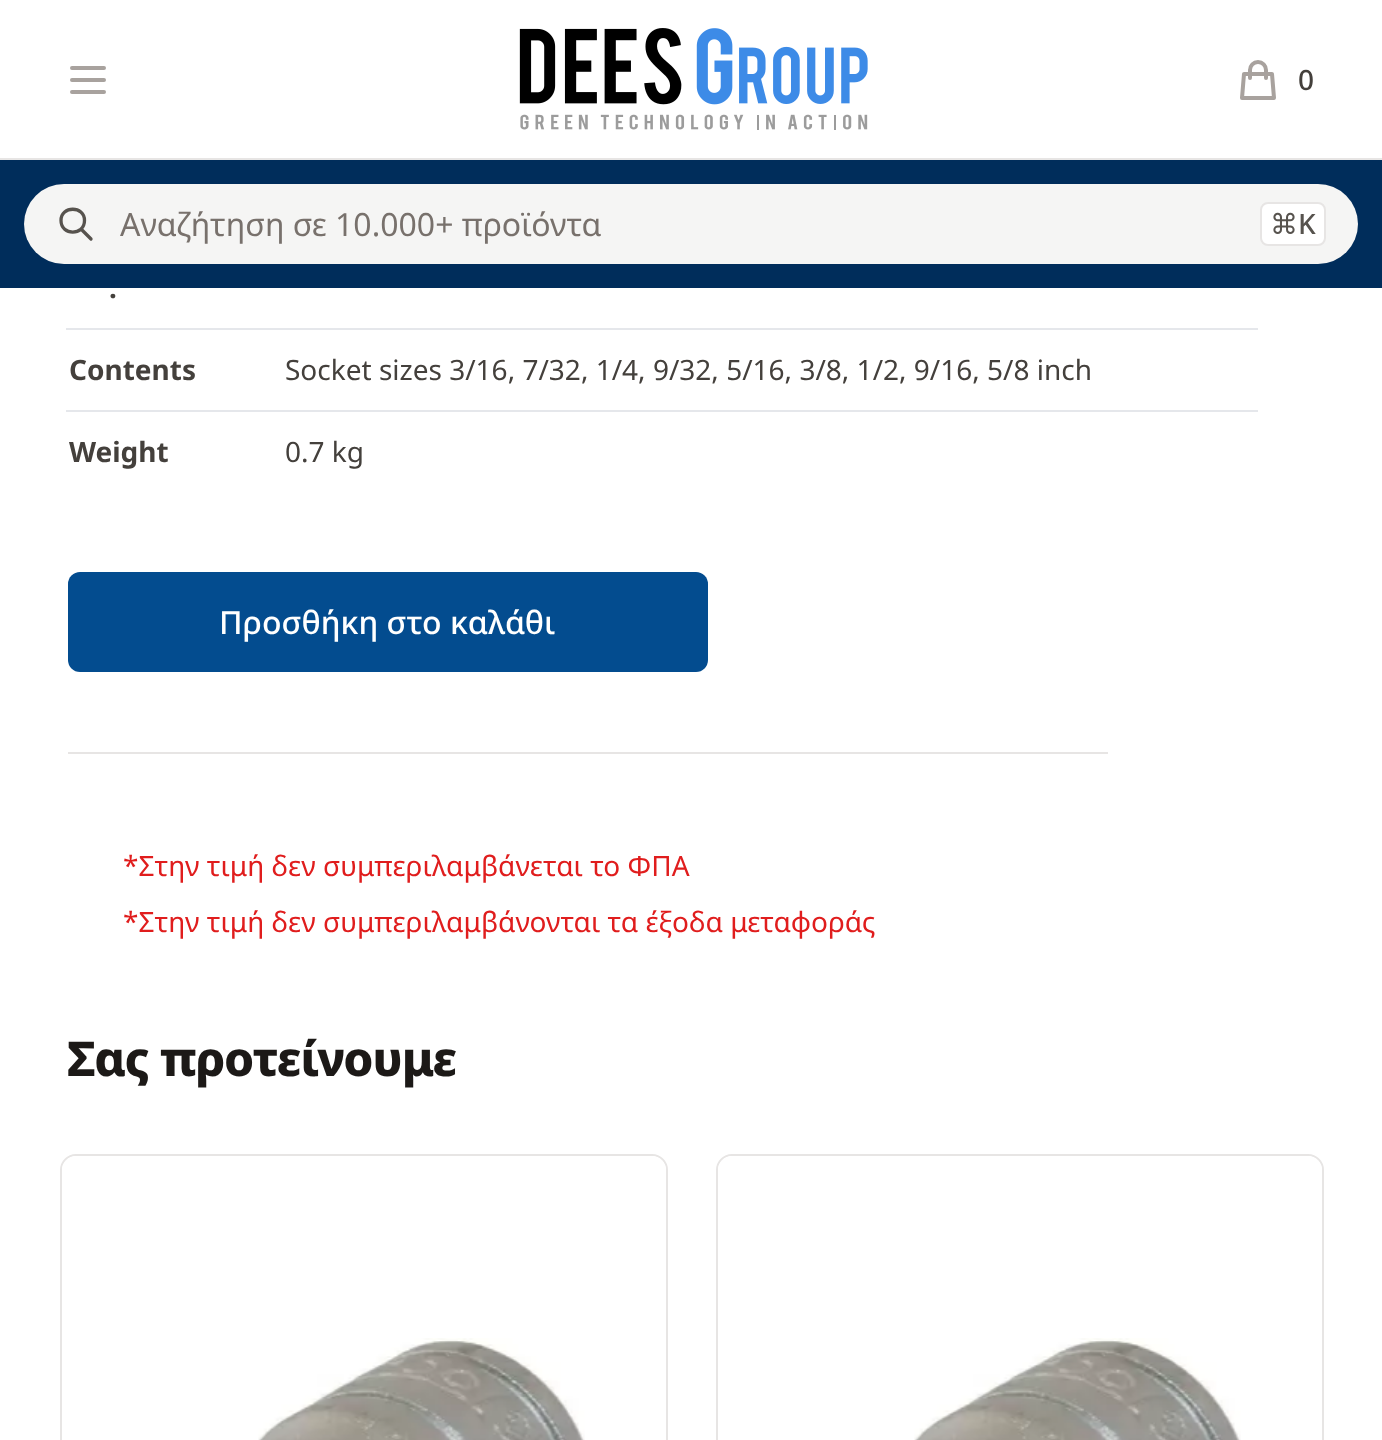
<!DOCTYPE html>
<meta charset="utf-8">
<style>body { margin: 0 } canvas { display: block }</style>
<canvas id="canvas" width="1382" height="1440"></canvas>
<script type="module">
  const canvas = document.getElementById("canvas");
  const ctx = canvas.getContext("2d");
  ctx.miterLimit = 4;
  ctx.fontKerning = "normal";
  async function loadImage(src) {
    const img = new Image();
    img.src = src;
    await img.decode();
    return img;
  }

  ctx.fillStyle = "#ffffff";
  ctx.fillRect(0, 0, 1382, 1440);
  ctx.beginPath();
  ctx.moveTo(72, 68);
  ctx.lineTo(104, 68);
  ctx.moveTo(72, 80);
  ctx.lineTo(104, 80);
  ctx.moveTo(72, 92);
  ctx.lineTo(104, 92);
  ctx.strokeStyle = "#a8a29e";
  ctx.lineWidth = 4;
  ctx.lineCap = "round";
  ctx.lineJoin = "round";
  ctx.stroke();
  ctx.drawImage(await loadImage("img1.png"), 519, 28, 349, 102);
  ctx.beginPath();
  ctx.moveTo(1266, 78);
  ctx.lineTo(1266, 70);
  ctx.bezierCurveTo(1266, 65.5, 1262.5, 62, 1258, 62);
  ctx.bezierCurveTo(1253.5, 62, 1250, 65.5, 1250, 70);
  ctx.lineTo(1250, 78);
  ctx.moveTo(1244, 74);
  ctx.lineTo(1272, 74);
  ctx.lineTo(1274, 98);
  ctx.lineTo(1242, 98);
  ctx.closePath();
  ctx.stroke();
  ctx.font = "500 28px Noto Sans";
  ctx.fillStyle = "#44403c";
  ctx.fillText("0", 1298, 90);
  ctx.fillStyle = "#002d5b";
  ctx.fillRect(0, 160, 1382, 128);
  ctx.fillStyle = "#f5f5f4";
  ctx.beginPath();
  ctx.roundRect(24, 184, 1334, 80, 40);
  ctx.fill();
  ctx.font = "32px Noto Sans";
  ctx.fillStyle = "#78716c";
  ctx.fillText("Αναζήτηση σε 10.000+ προϊόντα", 120, 236);
  ctx.beginPath();
  ctx.moveTo(91, 239);
  ctx.lineTo(81, 229);
  ctx.moveTo(84.5, 220.5);
  ctx.bezierCurveTo(84.5, 236, 61, 236, 61, 220.5);
  ctx.bezierCurveTo(61, 205.5, 84.5, 205.5, 84.5, 220.5);
  ctx.closePath();
  ctx.strokeStyle = "#57534e";
  ctx.lineWidth = 3.3;
  ctx.stroke();
  ctx.fillStyle = "#ffffff";
  ctx.beginPath();
  ctx.roundRect(1261, 203, 64, 42, 7);
  ctx.fill();
  ctx.strokeStyle = "#e7e5e4";
  ctx.lineWidth = 2;
  ctx.lineJoin = "miter";
  ctx.stroke();
  ctx.font = "28px DejaVu Sans";
  ctx.fillStyle = "#57534e";
  ctx.fillText("⌘", 1270, 234);
  ctx.font = "500 28px Noto Sans";
  ctx.fillText("K", 1298, 234);
  ctx.fillStyle = "#e7e5e4";
  ctx.fillRect(0, 158, 1382, 2);
  ctx.fillStyle = "#e5e7eb";
  ctx.fillRect(66, 328, 1192, 2);
  ctx.font = "bold 28px Noto Sans";
  ctx.fillStyle = "#44403c";
  ctx.fillText(".", 109, 298);
  ctx.fillStyle = "#e5e7eb";
  ctx.fillRect(66, 410, 1192, 2);
  ctx.fillStyle = "#44403c";
  ctx.fillText("Contents", 69, 380);
  ctx.font = "28px Noto Sans";
  ctx.fillText("Socket sizes 3/16, 7/32, 1/4, 9/32, 5/16, 3/8, 1/2, 9/16, 5/8 inch", 285, 380);
  ctx.font = "bold 28px Noto Sans";
  ctx.fillText("Weight", 69, 462);
  ctx.font = "28px Noto Sans";
  ctx.fillText("0.7 kg", 285, 462);
  ctx.fillStyle = "#034c8f";
  ctx.beginPath();
  ctx.roundRect(68, 572, 640, 100, 12);
  ctx.fill();
  ctx.font = "500 32px Noto Sans";
  ctx.fillStyle = "#ffffff";
  ctx.fillText("Προσθήκη στο καλάθι", 219, 634);
  ctx.fillStyle = "#e7e5e4";
  ctx.fillRect(68, 752, 1040, 2);
  ctx.font = "28px Noto Sans";
  ctx.fillStyle = "#e01d1d";
  ctx.fillText("*Στην τιμή δεν συμπεριλαμβάνεται το ΦΠΑ", 123, 876);
  ctx.fillText("*Στην τιμή δεν συμπεριλαμβάνονται τα έξοδα μεταφοράς", 123, 932);
  ctx.letterSpacing = "-1.25px";
  ctx.font = "800 48px Noto Sans";
  ctx.fillStyle = "#1c1917";
  ctx.fillText("Σας προτείνουμε", 67, 1076);
  ctx.beginPath();
  ctx.roundRect(61, 1155, 606, 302, 15);
  ctx.stroke();
  ctx.fillStyle = "#ffffff";
  ctx.beginPath();
  ctx.moveTo(76, 1156);
  ctx.lineTo(652, 1156);
  ctx.bezierCurveTo(659.5, 1156, 666, 1162.5, 666, 1170);
  ctx.lineTo(666, 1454);
  ctx.lineTo(62, 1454);
  ctx.lineTo(62, 1170);
  ctx.bezierCurveTo(62, 1162.5, 68.5, 1156, 76, 1156);
  ctx.closePath();
  ctx.fill();
  ctx.drawImage(await loadImage("img2.png"), 258, 1338, 327, 102);
  ctx.beginPath();
  ctx.roundRect(717, 1155, 606, 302, 15);
  ctx.stroke();
  ctx.beginPath();
  ctx.moveTo(732, 1156);
  ctx.lineTo(1308, 1156);
  ctx.bezierCurveTo(1315.5, 1156, 1322, 1162.5, 1322, 1170);
  ctx.lineTo(1322, 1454);
  ctx.lineTo(718, 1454);
  ctx.lineTo(718, 1170);
  ctx.bezierCurveTo(718, 1162.5, 724.5, 1156, 732, 1156);
  ctx.closePath();
  ctx.fill();
  ctx.drawImage(await loadImage("img2.png"), 914, 1338, 327, 102);
</script>
